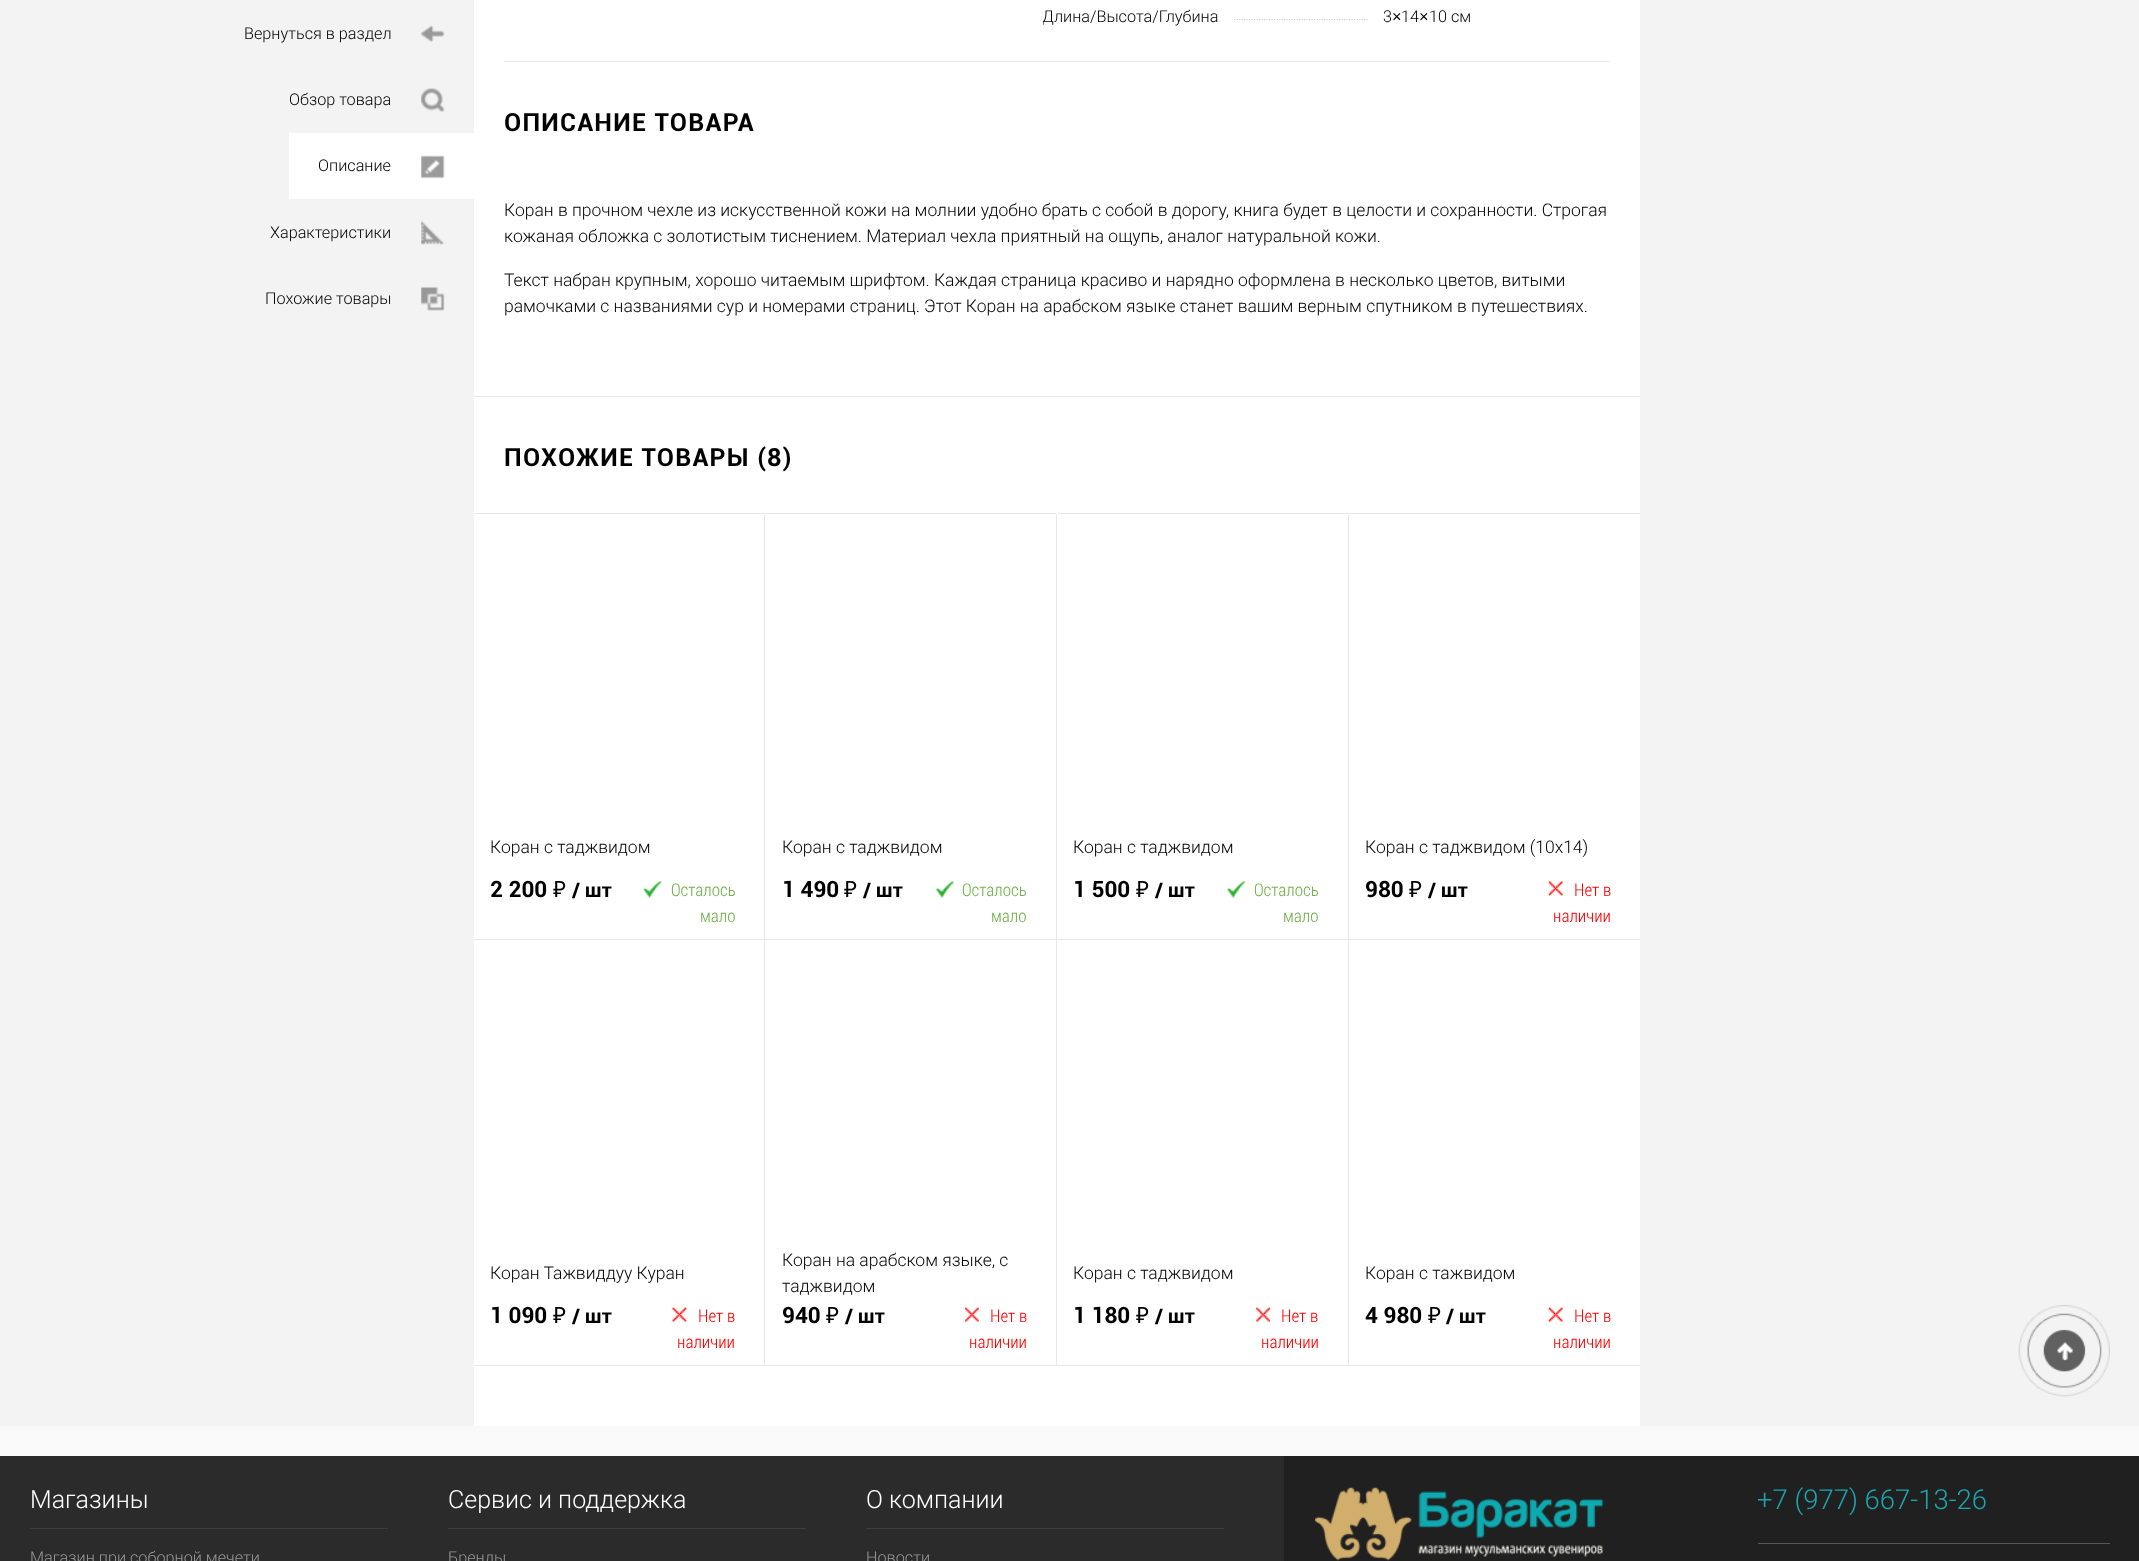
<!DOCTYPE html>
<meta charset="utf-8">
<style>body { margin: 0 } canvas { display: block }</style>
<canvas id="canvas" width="2139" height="1561"></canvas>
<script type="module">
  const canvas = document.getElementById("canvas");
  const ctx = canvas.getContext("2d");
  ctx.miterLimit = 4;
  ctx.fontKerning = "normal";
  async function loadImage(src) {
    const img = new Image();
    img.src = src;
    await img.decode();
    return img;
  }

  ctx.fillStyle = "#ffffff";
  ctx.fillRect(0, 0, 2139, 1561);
  ctx.fillStyle = "#f3f3f3";
  ctx.fillRect(0, 0, 474, 1426);
  ctx.font = "300 16.25px Roboto";
  ctx.fillStyle = "#000000";
  ctx.fillText("Вернуться в раздел", 244, 39);
  ctx.drawImage(await loadImage("img1.png"), 421, 25, 24, 17);
  ctx.fillText("Обзор товара", 289, 105);
  ctx.drawImage(await loadImage("img2.png"), 421, 88, 24, 24);
  ctx.fillStyle = "#ffffff";
  ctx.fillRect(289, 133, 185, 66);
  ctx.fillStyle = "#000000";
  ctx.fillText("Описание", 318, 171);
  ctx.drawImage(await loadImage("img3.png"), 421, 155, 24, 24);
  ctx.fillText("Характеристики", 270, 238);
  ctx.drawImage(await loadImage("img4.png"), 421, 221, 23, 24);
  ctx.fillText("Похожие товары", 265, 304);
  ctx.drawImage(await loadImage("img5.png"), 421, 287, 24, 24);
  ctx.save();
  ctx.beginPath();
  ctx.rect(1043, 0, 325, 31);
  ctx.clip();
  ctx.fillText("Длина/Высота/Глубина", 1042, 22);
  ctx.beginPath();
  ctx.moveTo(1234, 19.5);
  ctx.lineTo(1559, 19.5);
  ctx.strokeStyle = "#cccccc";
  ctx.lineWidth = 1.2;
  ctx.setLineDash([1.25, 1.25]);
  ctx.stroke();
  ctx.restore();
  ctx.fillText("3", 1383, 22);
  ctx.font = "16.25px Liberation Sans";
  ctx.fillText("×", 1392, 22);
  ctx.font = "300 16.25px Roboto";
  ctx.fillText("14", 1401, 22);
  ctx.font = "16.25px Liberation Sans";
  ctx.fillText("×", 1419, 22);
  ctx.font = "300 16.25px Roboto";
  ctx.fillText("10 см", 1429, 22);
  ctx.fillStyle = "#e7e8ea";
  ctx.fillRect(504, 61, 1106, 1);
  ctx.letterSpacing = "1.25px";
  ctx.font = "bold 25px Roboto";
  ctx.fillStyle = "#000000";
  ctx.fillText("ОПИСАНИЕ ТОВАРА", 504, 131);
  ctx.letterSpacing = "0px";
  ctx.font = "300 17.5px Roboto";
  ctx.fillText("Коран в прочном чехле из искусственной кожи на молнии удобно брать с собой в дорогу, книга будет в целости и сохранности. Строгая", 504, 216);
  ctx.fillText("кожаная обложка с золотистым тиснением. Материал чехла приятный на ощупь, аналог натуральной кожи.", 504, 242);
  ctx.fillText("Текст набран крупным, хорошо читаемым шрифтом. Каждая страница красиво и нарядно оформлена в несколько цветов, витыми", 504, 286);
  ctx.fillText("рамочками с названиями сур и номерами страниц. Этот Коран на арабском языке станет вашим верным спутником в путешествиях.", 504, 312);
  ctx.fillStyle = "#e7e8ea";
  ctx.fillRect(474, 396, 1166, 1);
  ctx.letterSpacing = "1.25px";
  ctx.font = "bold 25px Roboto";
  ctx.fillStyle = "#000000";
  ctx.fillText("ПОХОЖИЕ ТОВАРЫ (8)", 504, 466);
  ctx.fillStyle = "#e7e8ea";
  ctx.fillRect(764, 514, 1, 852);
  ctx.fillRect(474, 939, 291, 1);
  ctx.fillRect(474, 513, 290, 1);
  ctx.letterSpacing = "0px";
  ctx.font = "300 17.5px Roboto";
  ctx.fillStyle = "#000000";
  ctx.fillText("Коран с таджвидом", 490, 853);
  ctx.font = "bold 22.5px Roboto";
  ctx.fillText("2 200", 490, 897);
  ctx.font = "22.5px Noto Sans";
  ctx.fillText("₽", 553, 897);
  ctx.font = "bold 20px Roboto";
  ctx.fillText("/ шт", 572, 897);
  ctx.drawImage(await loadImage("img6.png"), 643, 881, 19, 17);
  ctx.font = "300 17.5px Roboto Condensed";
  ctx.fillStyle = "#73b24e";
  ctx.fillText("Осталось", 671, 896);
  ctx.fillText("мало", 700, 922);
  ctx.fillStyle = "#e7e8ea";
  ctx.fillRect(1056, 514, 1, 852);
  ctx.fillRect(765, 939, 293, 1);
  ctx.fillRect(765, 513, 291, 1);
  ctx.font = "300 17.5px Roboto";
  ctx.fillStyle = "#000000";
  ctx.fillText("Коран с таджвидом", 782, 853);
  ctx.font = "bold 22.5px Roboto";
  ctx.fillText("1 490", 782, 897);
  ctx.font = "22.5px Noto Sans";
  ctx.fillText("₽", 844, 897);
  ctx.font = "bold 20px Roboto";
  ctx.fillText("/ шт", 863, 897);
  ctx.drawImage(await loadImage("img7.png"), 936, 881, 18, 17);
  ctx.font = "300 17.5px Roboto Condensed";
  ctx.fillStyle = "#73b24e";
  ctx.fillText("Осталось", 962, 896);
  ctx.fillText("мало", 991, 922);
  ctx.fillStyle = "#e7e8ea";
  ctx.fillRect(1348, 514, 1, 852);
  ctx.fillRect(1058, 939, 582, 1);
  ctx.fillRect(1058, 513, 290, 1);
  ctx.font = "300 17.5px Roboto";
  ctx.fillStyle = "#000000";
  ctx.fillText("Коран с таджвидом", 1073, 853);
  ctx.font = "bold 22.5px Roboto";
  ctx.fillText("1 500", 1073, 897);
  ctx.font = "22.5px Noto Sans";
  ctx.fillText("₽", 1136, 897);
  ctx.font = "bold 20px Roboto";
  ctx.fillText("/ шт", 1155, 897);
  ctx.drawImage(await loadImage("img8.png"), 1227, 881, 19, 17);
  ctx.font = "300 17.5px Roboto Condensed";
  ctx.fillStyle = "#73b24e";
  ctx.fillText("Осталось", 1254, 896);
  ctx.fillText("мало", 1283, 922);
  ctx.fillStyle = "#e7e8ea";
  ctx.fillRect(1349, 513, 291, 1);
  ctx.font = "300 17.5px Roboto";
  ctx.fillStyle = "#000000";
  ctx.fillText("Коран c таджвидом (10x14)", 1365, 853);
  ctx.font = "bold 22.5px Roboto";
  ctx.fillText("980", 1365, 897);
  ctx.font = "22.5px Noto Sans";
  ctx.fillText("₽", 1409, 897);
  ctx.font = "bold 20px Roboto";
  ctx.fillText("/ шт", 1428, 897);
  ctx.drawImage(await loadImage("img9.png"), 1548, 881, 15, 15);
  ctx.font = "300 17.5px Roboto Condensed";
  ctx.fillStyle = "#ff0000";
  ctx.fillText("Нет в", 1574, 896);
  ctx.fillText("наличии", 1553, 922);
  ctx.fillStyle = "#e7e8ea";
  ctx.fillRect(474, 1365, 1166, 1);
  ctx.font = "300 17.5px Roboto";
  ctx.fillStyle = "#000000";
  ctx.fillText("Коран Тажвиддуу Куран", 490, 1279);
  ctx.font = "bold 22.5px Roboto";
  ctx.fillText("1 090", 490, 1323);
  ctx.font = "22.5px Noto Sans";
  ctx.fillText("₽", 553, 1323);
  ctx.font = "bold 20px Roboto";
  ctx.fillText("/ шт", 572, 1323);
  ctx.drawImage(await loadImage("img10.png"), 672, 1307, 15, 15);
  ctx.font = "300 17.5px Roboto Condensed";
  ctx.fillStyle = "#ff0000";
  ctx.fillText("Нет в", 698, 1322);
  ctx.fillText("наличии", 677, 1348);
  ctx.font = "300 17.5px Roboto";
  ctx.fillStyle = "#000000";
  ctx.fillText("Коран на арабском языке, с", 782, 1266);
  ctx.fillText("таджвидом", 782, 1292);
  ctx.font = "bold 22.5px Roboto";
  ctx.fillText("940", 782, 1323);
  ctx.font = "22.5px Noto Sans";
  ctx.fillText("₽", 826, 1323);
  ctx.font = "bold 20px Roboto";
  ctx.fillText("/ шт", 845, 1323);
  ctx.drawImage(await loadImage("img11.png"), 964, 1307, 15, 15);
  ctx.font = "300 17.5px Roboto Condensed";
  ctx.fillStyle = "#ff0000";
  ctx.fillText("Нет в", 990, 1322);
  ctx.fillText("наличии", 969, 1348);
  ctx.font = "300 17.5px Roboto";
  ctx.fillStyle = "#000000";
  ctx.fillText("Коран с таджвидом", 1073, 1279);
  ctx.font = "bold 22.5px Roboto";
  ctx.fillText("1 180", 1073, 1323);
  ctx.font = "22.5px Noto Sans";
  ctx.fillText("₽", 1136, 1323);
  ctx.font = "bold 20px Roboto";
  ctx.fillText("/ шт", 1155, 1323);
  ctx.drawImage(await loadImage("img12.png"), 1256, 1307, 15, 15);
  ctx.font = "300 17.5px Roboto Condensed";
  ctx.fillStyle = "#ff0000";
  ctx.fillText("Нет в", 1281, 1322);
  ctx.fillText("наличии", 1261, 1348);
  ctx.font = "300 17.5px Roboto";
  ctx.fillStyle = "#000000";
  ctx.fillText("Коран c тажвидом", 1365, 1279);
  ctx.font = "bold 22.5px Roboto";
  ctx.fillText("4 980", 1365, 1323);
  ctx.font = "22.5px Noto Sans";
  ctx.fillText("₽", 1428, 1323);
  ctx.font = "bold 20px Roboto";
  ctx.fillText("/ шт", 1446, 1323);
  ctx.drawImage(await loadImage("img13.png"), 1548, 1307, 15, 15);
  ctx.font = "300 17.5px Roboto Condensed";
  ctx.fillStyle = "#ff0000";
  ctx.fillText("Нет в", 1574, 1322);
  ctx.fillText("наличии", 1553, 1348);
  ctx.fillStyle = "#f3f3f3";
  ctx.fillRect(1640, 0, 499, 1426);
  ctx.fillStyle = "#f9f9f9";
  ctx.fillRect(0, 1426, 2139, 30);
  ctx.fillStyle = "#2b2b2b";
  ctx.fillRect(0, 1456, 1284, 105);
  ctx.fillStyle = "#3e3e3e";
  ctx.fillRect(30, 1528, 358, 1);
  ctx.font = "300 25px Roboto";
  ctx.fillStyle = "#ffffff";
  ctx.fillText("Магазины", 30, 1508);
  ctx.font = "300 16.25px Roboto";
  ctx.fillStyle = "#999999";
  ctx.fillText("Магазин при соборной мечети", 30, 1563);
  ctx.fillStyle = "#3e3e3e";
  ctx.fillRect(448, 1528, 358, 1);
  ctx.font = "300 25px Roboto";
  ctx.fillStyle = "#ffffff";
  ctx.fillText("Сервис и поддержка", 448, 1508);
  ctx.font = "300 16.25px Roboto";
  ctx.fillStyle = "#999999";
  ctx.fillText("Бренды", 448, 1563);
  ctx.fillStyle = "#3e3e3e";
  ctx.fillRect(866, 1528, 358, 1);
  ctx.font = "300 25px Roboto";
  ctx.fillStyle = "#ffffff";
  ctx.fillText("О компании", 866, 1508);
  ctx.font = "300 16.25px Roboto";
  ctx.fillStyle = "#999999";
  ctx.fillText("Новости", 866, 1563);
  ctx.fillStyle = "#202020";
  ctx.fillRect(1284, 1456, 855, 105);
  ctx.drawImage(await loadImage("img14.png"), 1315, 1487, 288, 74);
  ctx.font = "300 27.5px Roboto";
  ctx.fillStyle = "#1ca5af";
  ctx.fillText("+7 (977) 667-13-26", 1757, 1509);
  ctx.fillStyle = "#575757";
  ctx.fillRect(1758, 1543, 352, 1);
  ctx.drawImage(await loadImage("img15.png"), 2018, 1305, 92, 92);
</script>
